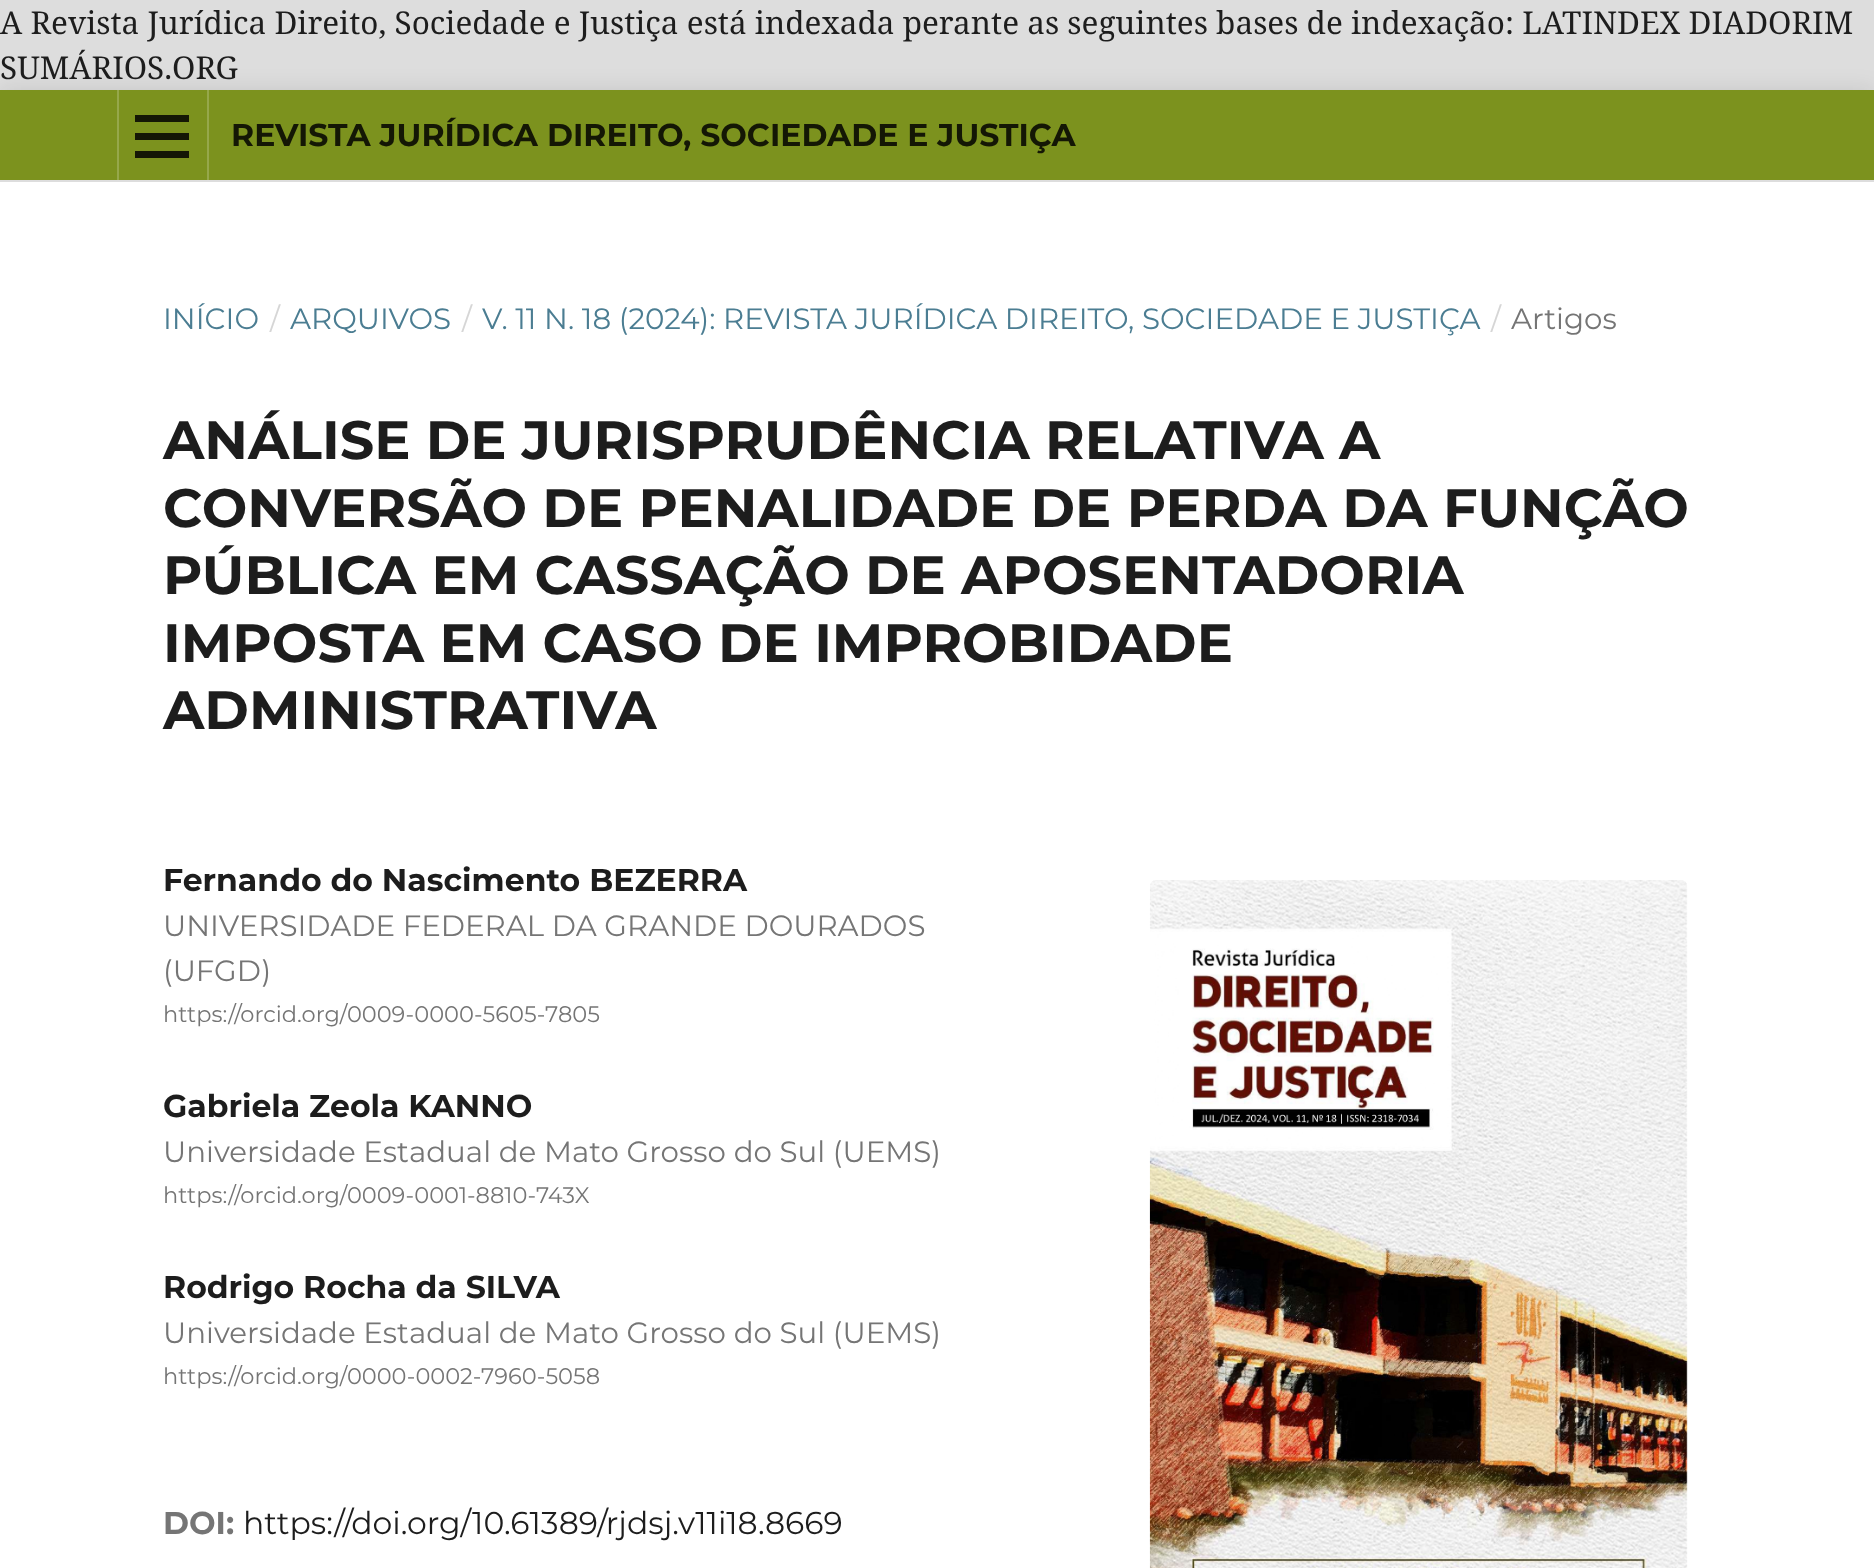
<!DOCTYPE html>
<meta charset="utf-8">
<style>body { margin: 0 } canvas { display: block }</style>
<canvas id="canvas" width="1874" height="1568"></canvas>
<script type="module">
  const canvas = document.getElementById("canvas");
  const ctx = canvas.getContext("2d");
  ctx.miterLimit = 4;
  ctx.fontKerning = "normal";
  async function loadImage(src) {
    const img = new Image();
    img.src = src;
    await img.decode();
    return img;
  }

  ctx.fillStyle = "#dddddd";
  ctx.fillRect(0, 0, 1874, 1568);
  ctx.font = "31.5px Noto Serif";
  ctx.fillStyle = "#1d1d1d";
  ctx.fillText("A Revista Jurídica Direito, Sociedade e Justiça está indexada perante as seguintes bases de indexação: LATINDEX DIADORIM", 0, 34);
  ctx.fillStyle = "rgba(0, 0, 0, 0.1)";
  ctx.filter = "blur(11px)";
  ctx.beginPath();
  ctx.rect(0, 90, 1874, 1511);
  ctx.fill();
  ctx.filter = "none";
  ctx.fillStyle = "#1d1d1d";
  ctx.fillText("SUMÁRIOS.ORG", 0, 79);
  ctx.fillStyle = "#ffffff";
  ctx.fillRect(0, 182, 1874, 1386);
  ctx.fillStyle = "#7c921e";
  ctx.fillRect(0, 90, 1874, 90);
  ctx.fillStyle = "#dddddd";
  ctx.fillRect(0, 180, 1874, 2);
  ctx.fillStyle = "#96a84b";
  ctx.fillRect(117, 90, 2, 90);
  ctx.fillRect(207, 90, 2, 90);
  ctx.fillStyle = "#141705";
  ctx.fillRect(135, 151, 54, 7);
  ctx.fillRect(135, 115, 54, 7);
  ctx.fillRect(135, 133, 54, 7);
  ctx.font = "bold 31.5px Montserrat";
  ctx.fillText("REVISTA JURÍDICA DIREITO, SOCIEDADE E JUSTIÇA", 231, 146);
  ctx.font = "29.3px Montserrat";
  ctx.fillStyle = "#4b7d92";
  ctx.fillText("INÍCIO", 163, 329);
  ctx.fillStyle = "#d6d6d6";
  ctx.fillText("/", 270, 329);
  ctx.fillStyle = "#4b7d92";
  ctx.fillText("ARQUIVOS", 290, 329);
  ctx.fillStyle = "#d6d6d6";
  ctx.fillText("/", 462, 329);
  ctx.fillStyle = "#4b7d92";
  ctx.fillText("V. 11 N. 18 (2024): REVISTA JURÍDICA DIREITO, SOCIEDADE E JUSTIÇA", 482, 329);
  ctx.fillStyle = "#d6d6d6";
  ctx.fillText("/", 1491, 329);
  ctx.fillStyle = "#757575";
  ctx.fillText("Artigos", 1511, 329);
  ctx.font = "bold 54px Montserrat";
  ctx.fillStyle = "#1d1d1d";
  ctx.fillText("ANÁLISE DE JURISPRUDÊNCIA RELATIVA A", 163, 459);
  ctx.fillText("CONVERSÃO DE PENALIDADE DE PERDA DA FUNÇÃO", 163, 527);
  ctx.fillText("PÚBLICA EM CASSAÇÃO DE APOSENTADORIA", 163, 594);
  ctx.fillText("IMPOSTA EM CASO DE IMPROBIDADE", 163, 662);
  ctx.fillText("ADMINISTRATIVA", 163, 729);
  ctx.font = "bold 31.5px Montserrat";
  ctx.fillText("Fernando do Nascimento BEZERRA", 163, 891);
  ctx.font = "29.3px Montserrat";
  ctx.fillStyle = "#757575";
  ctx.fillText("UNIVERSIDADE FEDERAL DA GRANDE DOURADOS", 163, 936);
  ctx.fillText("(UFGD)", 163, 981);
  ctx.font = "22.5px Montserrat";
  ctx.fillText("https://orcid.org/0009-0000-5605-7805", 163, 1022);
  ctx.font = "bold 31.5px Montserrat";
  ctx.fillStyle = "#1d1d1d";
  ctx.fillText("Gabriela Zeola KANNO", 163, 1117);
  ctx.font = "29.3px Montserrat";
  ctx.fillStyle = "#757575";
  ctx.fillText("Universidade Estadual de Mato Grosso do Sul (UEMS)", 163, 1162);
  ctx.font = "22.5px Montserrat";
  ctx.fillText("https://orcid.org/0009-0001-8810-743X", 163, 1203);
  ctx.font = "bold 31.5px Montserrat";
  ctx.fillStyle = "#1d1d1d";
  ctx.fillText("Rodrigo Rocha da SILVA", 163, 1298);
  ctx.font = "29.3px Montserrat";
  ctx.fillStyle = "#757575";
  ctx.fillText("Universidade Estadual de Mato Grosso do Sul (UEMS)", 163, 1343);
  ctx.font = "22.5px Montserrat";
  ctx.fillText("https://orcid.org/0000-0002-7960-5058", 163, 1384);
  ctx.font = "bold 31.5px Montserrat";
  ctx.fillText("DOI:", 163, 1534);
  ctx.font = "31.5px Montserrat";
  ctx.fillStyle = "#1d1d1d";
  ctx.fillText("https://doi.org/10.61389/rjdsj.v11i18.8669", 243, 1534);
  ctx.drawImage(await loadImage("img1.png"), 1149, 880, 539, 688);
</script>
